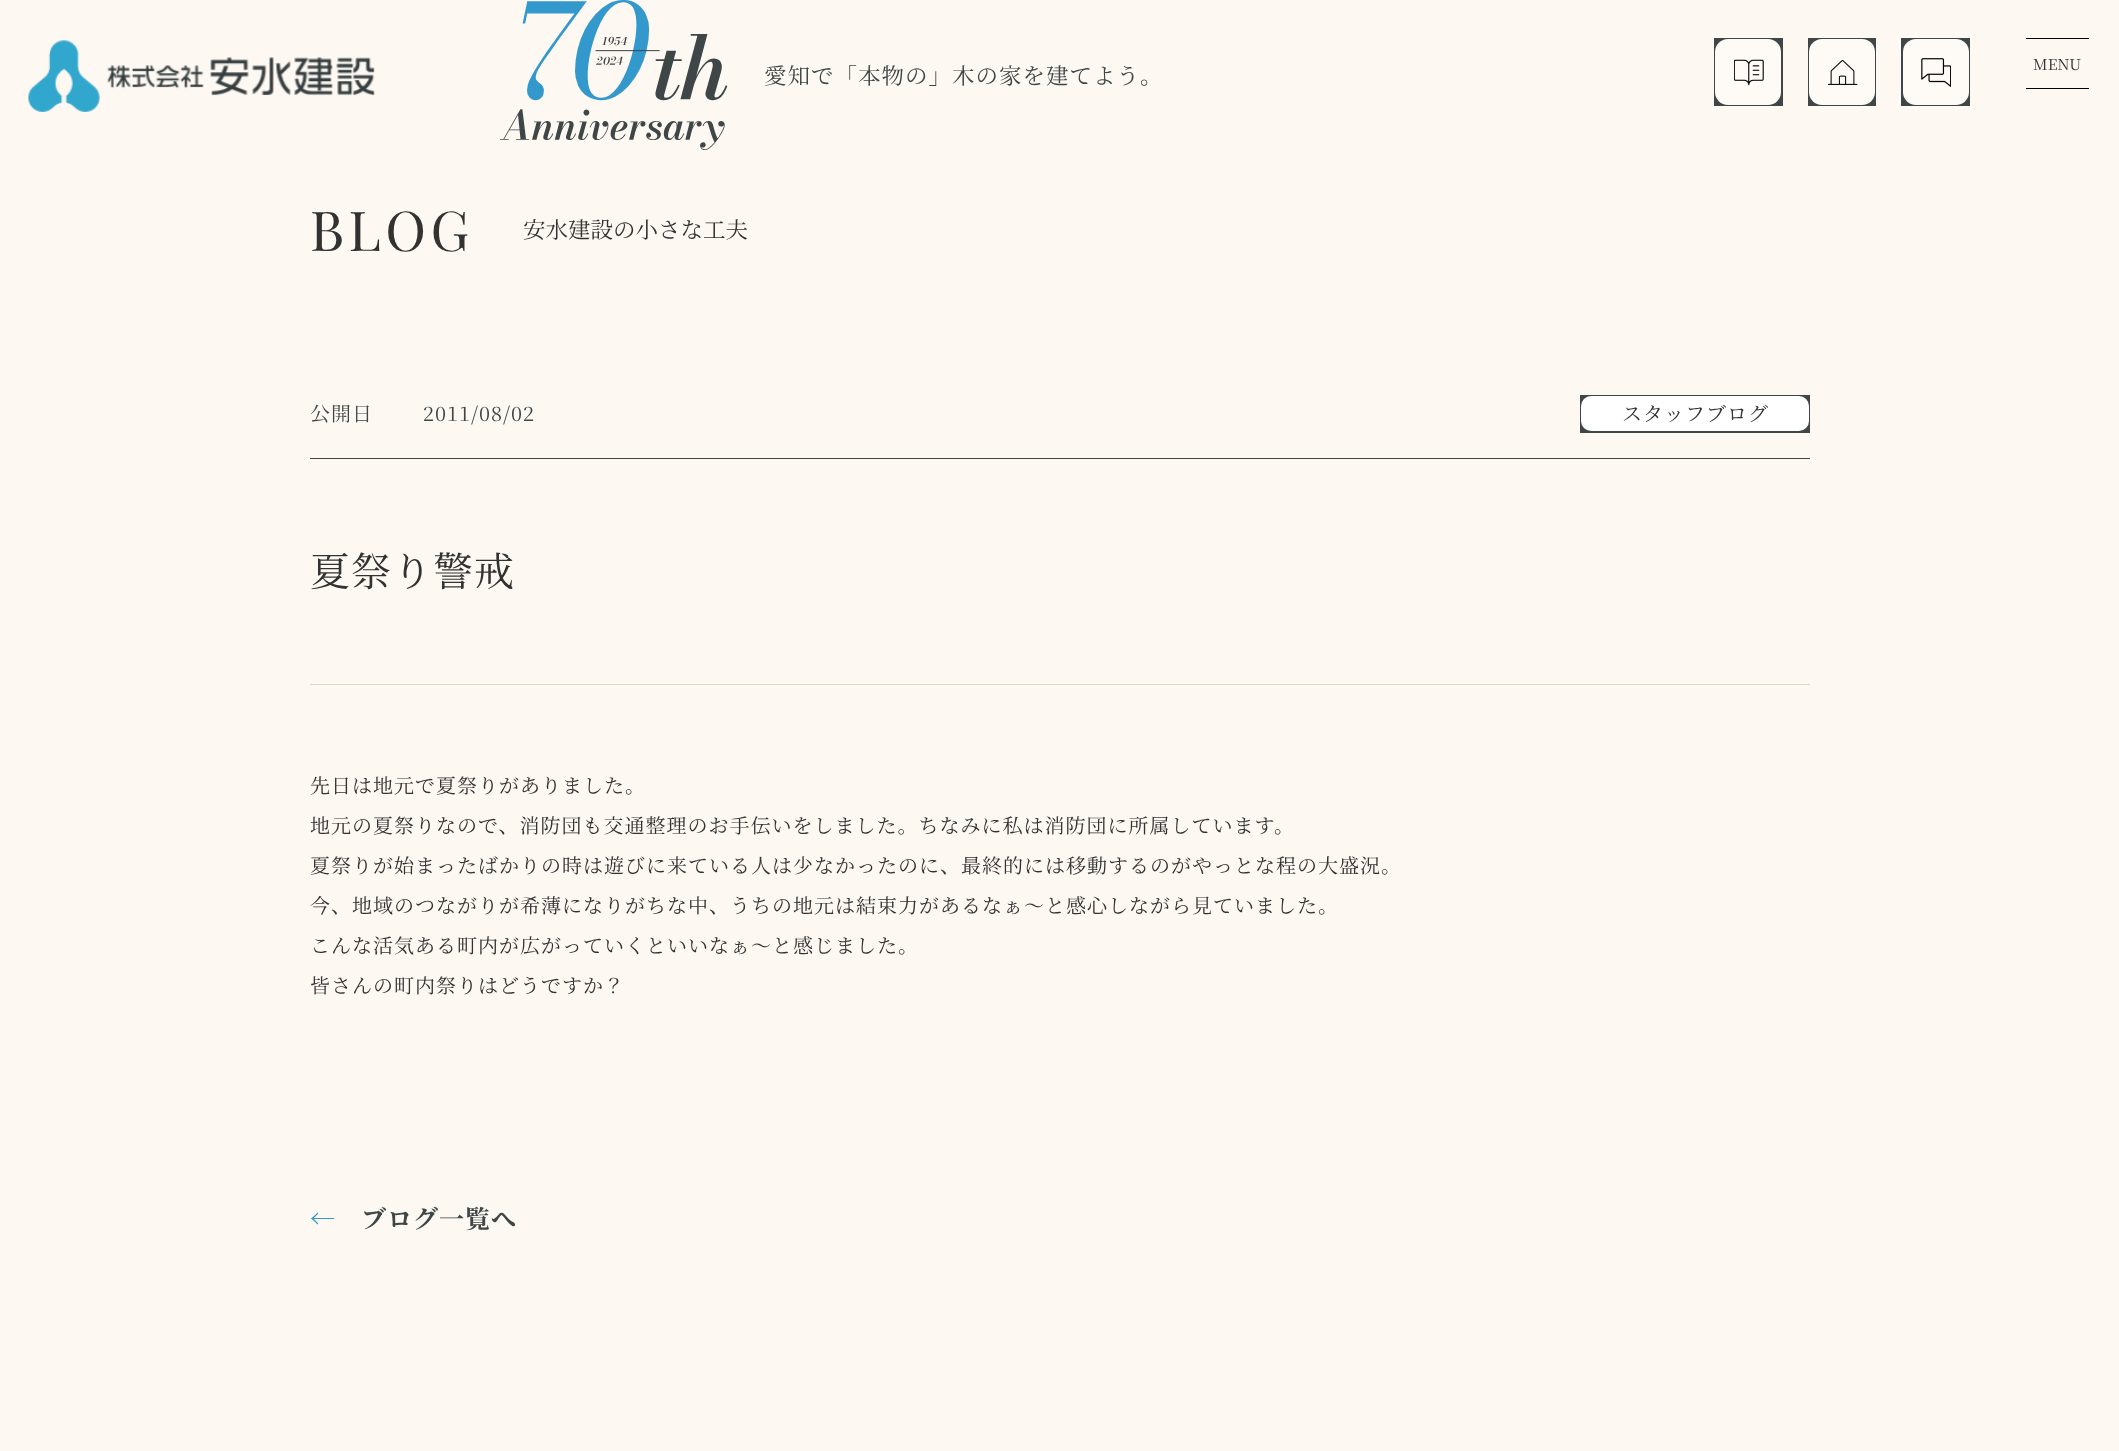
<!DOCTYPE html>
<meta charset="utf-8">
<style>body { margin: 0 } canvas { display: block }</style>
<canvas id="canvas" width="2119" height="1451"></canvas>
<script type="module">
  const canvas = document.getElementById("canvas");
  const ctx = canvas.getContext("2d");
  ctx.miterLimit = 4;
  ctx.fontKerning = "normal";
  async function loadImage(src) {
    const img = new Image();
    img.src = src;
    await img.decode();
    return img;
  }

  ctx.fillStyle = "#fef8f2";
  ctx.fillRect(0, 0, 2119, 1451);
  ctx.fillStyle = "#3e4648";
  ctx.fillRect(1714, 38, 69, 68);
  ctx.fillStyle = "#fefbf7";
  ctx.beginPath();
  ctx.roundRect(1715, 39, 66, 66, 13);
  ctx.fill();
  ctx.drawImage(await loadImage("img1.png"), 1734, 59, 30, 27);
  ctx.fillStyle = "#3e4648";
  ctx.fillRect(1808, 38, 68, 68);
  ctx.fillStyle = "#fefbf7";
  ctx.beginPath();
  ctx.roundRect(1809, 39, 66, 66, 13);
  ctx.fill();
  ctx.drawImage(await loadImage("img2.png"), 1828, 60, 30, 25);
  ctx.fillStyle = "#3e4648";
  ctx.fillRect(1901, 38, 69, 68);
  ctx.fillStyle = "#fefbf7";
  ctx.beginPath();
  ctx.roundRect(1903, 39, 66, 66, 13);
  ctx.fill();
  ctx.drawImage(await loadImage("img3.png"), 1921, 58, 30, 29);
  ctx.drawImage(await loadImage("img4.png"), 500, 0, 228, 150);
  ctx.letterSpacing = "1px";
  ctx.font = "22.5px Noto Serif JP";
  ctx.fillStyle = "#3e4648";
  ctx.fillText("愛知で「本物の」木の家を建てよう。", 764, 84);
  ctx.drawImage(await loadImage("img5.png"), 28, 40, 347, 72);
  ctx.fillStyle = "#000000";
  ctx.fillRect(2026, 38, 63, 1);
  ctx.letterSpacing = "0px";
  ctx.font = "15px Noto Serif JP";
  ctx.fillStyle = "#323232";
  ctx.fillText("MENU", 2033, 70);
  ctx.fillStyle = "#000000";
  ctx.fillRect(2026, 88, 63, 1);
  ctx.letterSpacing = "4.5px";
  ctx.font = "55px Playfair Display";
  ctx.fillStyle = "#323232";
  ctx.fillText("BLOG", 310, 251);
  ctx.letterSpacing = "0px";
  ctx.font = "22.5px Noto Serif JP";
  ctx.fillText("安水建設の小さな工夫", 523, 238);
  ctx.fillStyle = "#3e4648";
  ctx.fillRect(310, 458, 1500, 1);
  ctx.letterSpacing = "1px";
  ctx.font = "20px Noto Serif JP";
  ctx.fillText("公開日", 310, 421);
  ctx.fillText("2011/08/02", 423, 421);
  ctx.fillRect(1580, 395, 230, 38);
  ctx.fillStyle = "#ffffff";
  ctx.beginPath();
  ctx.roundRect(1581, 396, 228, 35, 10);
  ctx.fill();
  ctx.fillStyle = "#323232";
  ctx.fillText("スタッフブログ", 1622, 421);
  ctx.font = "40px Noto Serif JP";
  ctx.fillText("夏祭り警戒", 310, 586);
  ctx.fillStyle = "#e2d8ca";
  ctx.fillRect(310, 684, 1500, 1);
  ctx.font = "20px Noto Serif JP";
  ctx.fillStyle = "#323232";
  ctx.fillText("先日は地元で夏祭りがありました。", 310, 793);
  ctx.fillText("地元の夏祭りなので、消防団も交通整理のお手伝いをしました。ちなみに私は消防団に所属しています。", 310, 833);
  ctx.fillText("夏祭りが始まったばかりの時は遊びに来ている人は少なかったのに、最終的には移動するのがやっとな程の大盛況。", 310, 873);
  ctx.fillText("今、地域のつながりが希薄になりがちな中、うちの地元は結束力があるなぁ～と感心しながら見ていました。", 310, 913);
  ctx.fillText("こんな活気ある町内が広がっていくといいなぁ～と感じました。", 310, 953);
  ctx.fillText("皆さんの町内祭りはどうですか？", 310, 993);
  ctx.font = "bold 25px Noto Serif JP";
  ctx.fillStyle = "#3399cc";
  ctx.fillText("←", 310, 1228);
  ctx.fillStyle = "#3e4648";
  ctx.fillText("ブログ一覧へ", 361, 1228);
</script>
